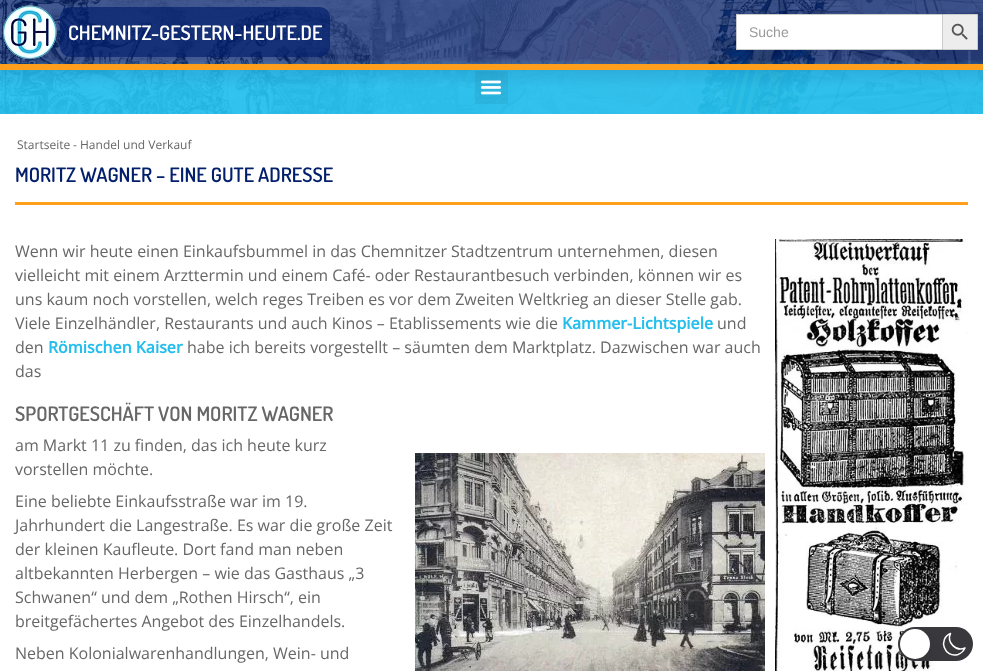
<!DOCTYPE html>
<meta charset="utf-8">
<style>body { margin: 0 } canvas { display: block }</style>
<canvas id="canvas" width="983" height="671"></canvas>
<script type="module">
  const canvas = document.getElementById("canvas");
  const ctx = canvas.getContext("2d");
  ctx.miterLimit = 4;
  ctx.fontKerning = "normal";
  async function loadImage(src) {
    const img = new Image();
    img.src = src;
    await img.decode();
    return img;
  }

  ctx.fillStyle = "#ffffff";
  ctx.fillRect(0, 0, 983, 671);
  ctx.drawImage(await loadImage("img1.png"), 0, 0, 983, 114);
  ctx.drawImage(await loadImage("img2.png"), 2, 5, 55, 55);
  ctx.fillStyle = "rgba(2, 31, 107, 0.68)";
  ctx.beginPath();
  ctx.roundRect(60, 7, 270, 50, 10);
  ctx.fill();
  ctx.font = "600 20px Dosis";
  ctx.fillStyle = "#ffffff";
  ctx.fillText("CHEMNITZ-GESTERN-HEUTE.DE", 68, 40);
  ctx.fillRect(737, 15, 205, 34);
  ctx.fillStyle = "#cccccc";
  ctx.fillRect(736, 14, 206, 1);
  ctx.fillRect(736, 49, 206, 1);
  ctx.fillRect(736, 14, 1, 36);
  ctx.font = "14px Liberation Sans";
  ctx.fillStyle = "#999999";
  ctx.fillText("Suche", 749, 37);
  ctx.fillStyle = "#ededed";
  ctx.beginPath();
  ctx.rect(942.5, 14.5, 35, 35);
  ctx.fill();
  ctx.strokeStyle = "#cccccc";
  ctx.stroke();
  ctx.drawImage(await loadImage("img3.png"), 951, 23, 17, 17);
  ctx.fillStyle = "rgba(37, 190, 237, 0.76)";
  ctx.fillRect(0, 70, 983, 44);
  ctx.fillStyle = "#ff9f1c";
  ctx.fillRect(0, 64, 983, 6);
  ctx.fillStyle = "rgba(0, 0, 0, 0.05)";
  ctx.fillRect(475, 71, 33, 33);
  ctx.drawImage(await loadImage("img4.png"), 480, 80, 22, 15);
  ctx.font = "12px Open Sans";
  ctx.fillStyle = "#676767";
  ctx.fillText("Startseite", 17, 149);
  ctx.fillText("-", 73, 149);
  ctx.fillText("Handel und Verkauf", 80, 149);
  ctx.fillStyle = "#ff9f1c";
  ctx.fillRect(15, 202, 953, 3);
  ctx.font = "600 20px Dosis";
  ctx.fillStyle = "#021f6b";
  ctx.fillText("MORITZ WAGNER – EINE GUTE ADRESSE", 15, 182);
  ctx.font = "16px Open Sans";
  ctx.fillStyle = "#676767";
  ctx.fillText("Wenn wir heute einen Einkaufsbummel in das Chemnitzer Stadtzentrum unternehmen, diesen", 15, 257);
  ctx.fillText("vielleicht mit einem Arzttermin und einem Café- oder Restaurantbesuch verbinden, können wir es", 15, 281);
  ctx.fillText("uns kaum noch vorstellen, welch reges Treiben es vor dem Zweiten Weltkrieg an dieser Stelle gab.", 15, 305);
  ctx.fillText("Viele Einzelhändler, Restaurants und auch Kinos – Etablissements wie die", 15, 329);
  ctx.font = "bold 16px Open Sans";
  ctx.fillStyle = "#25beed";
  ctx.fillText("Kammer-Lichtspiele", 562, 329);
  ctx.font = "16px Open Sans";
  ctx.fillStyle = "#676767";
  ctx.fillText("und", 717, 329);
  ctx.fillText("den", 15, 353);
  ctx.font = "bold 16px Open Sans";
  ctx.fillStyle = "#25beed";
  ctx.fillText("Römischen Kaiser", 48, 353);
  ctx.font = "16px Open Sans";
  ctx.fillStyle = "#676767";
  ctx.fillText("habe ich bereits vorgestellt – säumten dem Marktplatz. Dazwischen war auch", 187, 353);
  ctx.fillText("das", 15, 377);
  ctx.font = "600 20px Dosis";
  ctx.fillText("SPORTGESCHÄFT VON MORITZ WAGNER", 15, 421);
  ctx.font = "16px Open Sans";
  ctx.fillText("am Markt 11 zu finden, das ich heute kurz", 15, 451);
  ctx.fillText("vorstellen möchte.", 15, 475);
  ctx.drawImage(await loadImage("img5.png"), 415, 453, 350, 218);
  ctx.fillText("Eine beliebte Einkaufsstraße war im 19.", 15, 507);
  ctx.fillText("Jahrhundert die Langestraße. Es war die große Zeit", 15, 531);
  ctx.fillText("der kleinen Kaufleute. Dort fand man neben", 15, 555);
  ctx.fillText("altbekannten Herbergen – wie das Gasthaus „3", 15, 579);
  ctx.fillText("Schwanen“ und dem „Rothen Hirsch“, ein", 15, 603);
  ctx.fillText("breitgefächertes Angebot des Einzelhandels.", 15, 627);
  ctx.fillText("Neben Kolonialwarenhandlungen, Wein- und", 15, 659);
  ctx.drawImage(await loadImage("img6.png"), 775, 239, 193, 432);
  ctx.fillStyle = "#39393d";
  ctx.beginPath();
  ctx.roundRect(898, 627, 75, 34, 17);
  ctx.fill();
  ctx.beginPath();
  ctx.moveTo(965, 648);
  ctx.bezierCurveTo(956, 652, 946.5, 642.5, 950.5, 633.5);
  ctx.bezierCurveTo(937.5, 639, 944.5, 658.5, 958, 654.5);
  ctx.bezierCurveTo(961, 653.5, 963.5, 651, 965, 648);
  ctx.closePath();
  ctx.strokeStyle = "#ffffff";
  ctx.lineWidth = 1.5;
  ctx.lineCap = "round";
  ctx.lineJoin = "round";
  ctx.stroke();
  ctx.fillStyle = "rgba(0, 0, 0, 0.1)";
  ctx.filter = "blur(7.5px)";
  ctx.beginPath();
  ctx.roundRect(903, 642, 24, 24, 12);
  ctx.fill();
  ctx.filter = "none";
  ctx.fillStyle = "#ffffff";
  ctx.beginPath();
  ctx.arc(915, 644, 15, 0, Math.PI * 2);
  ctx.fill();
</script>
